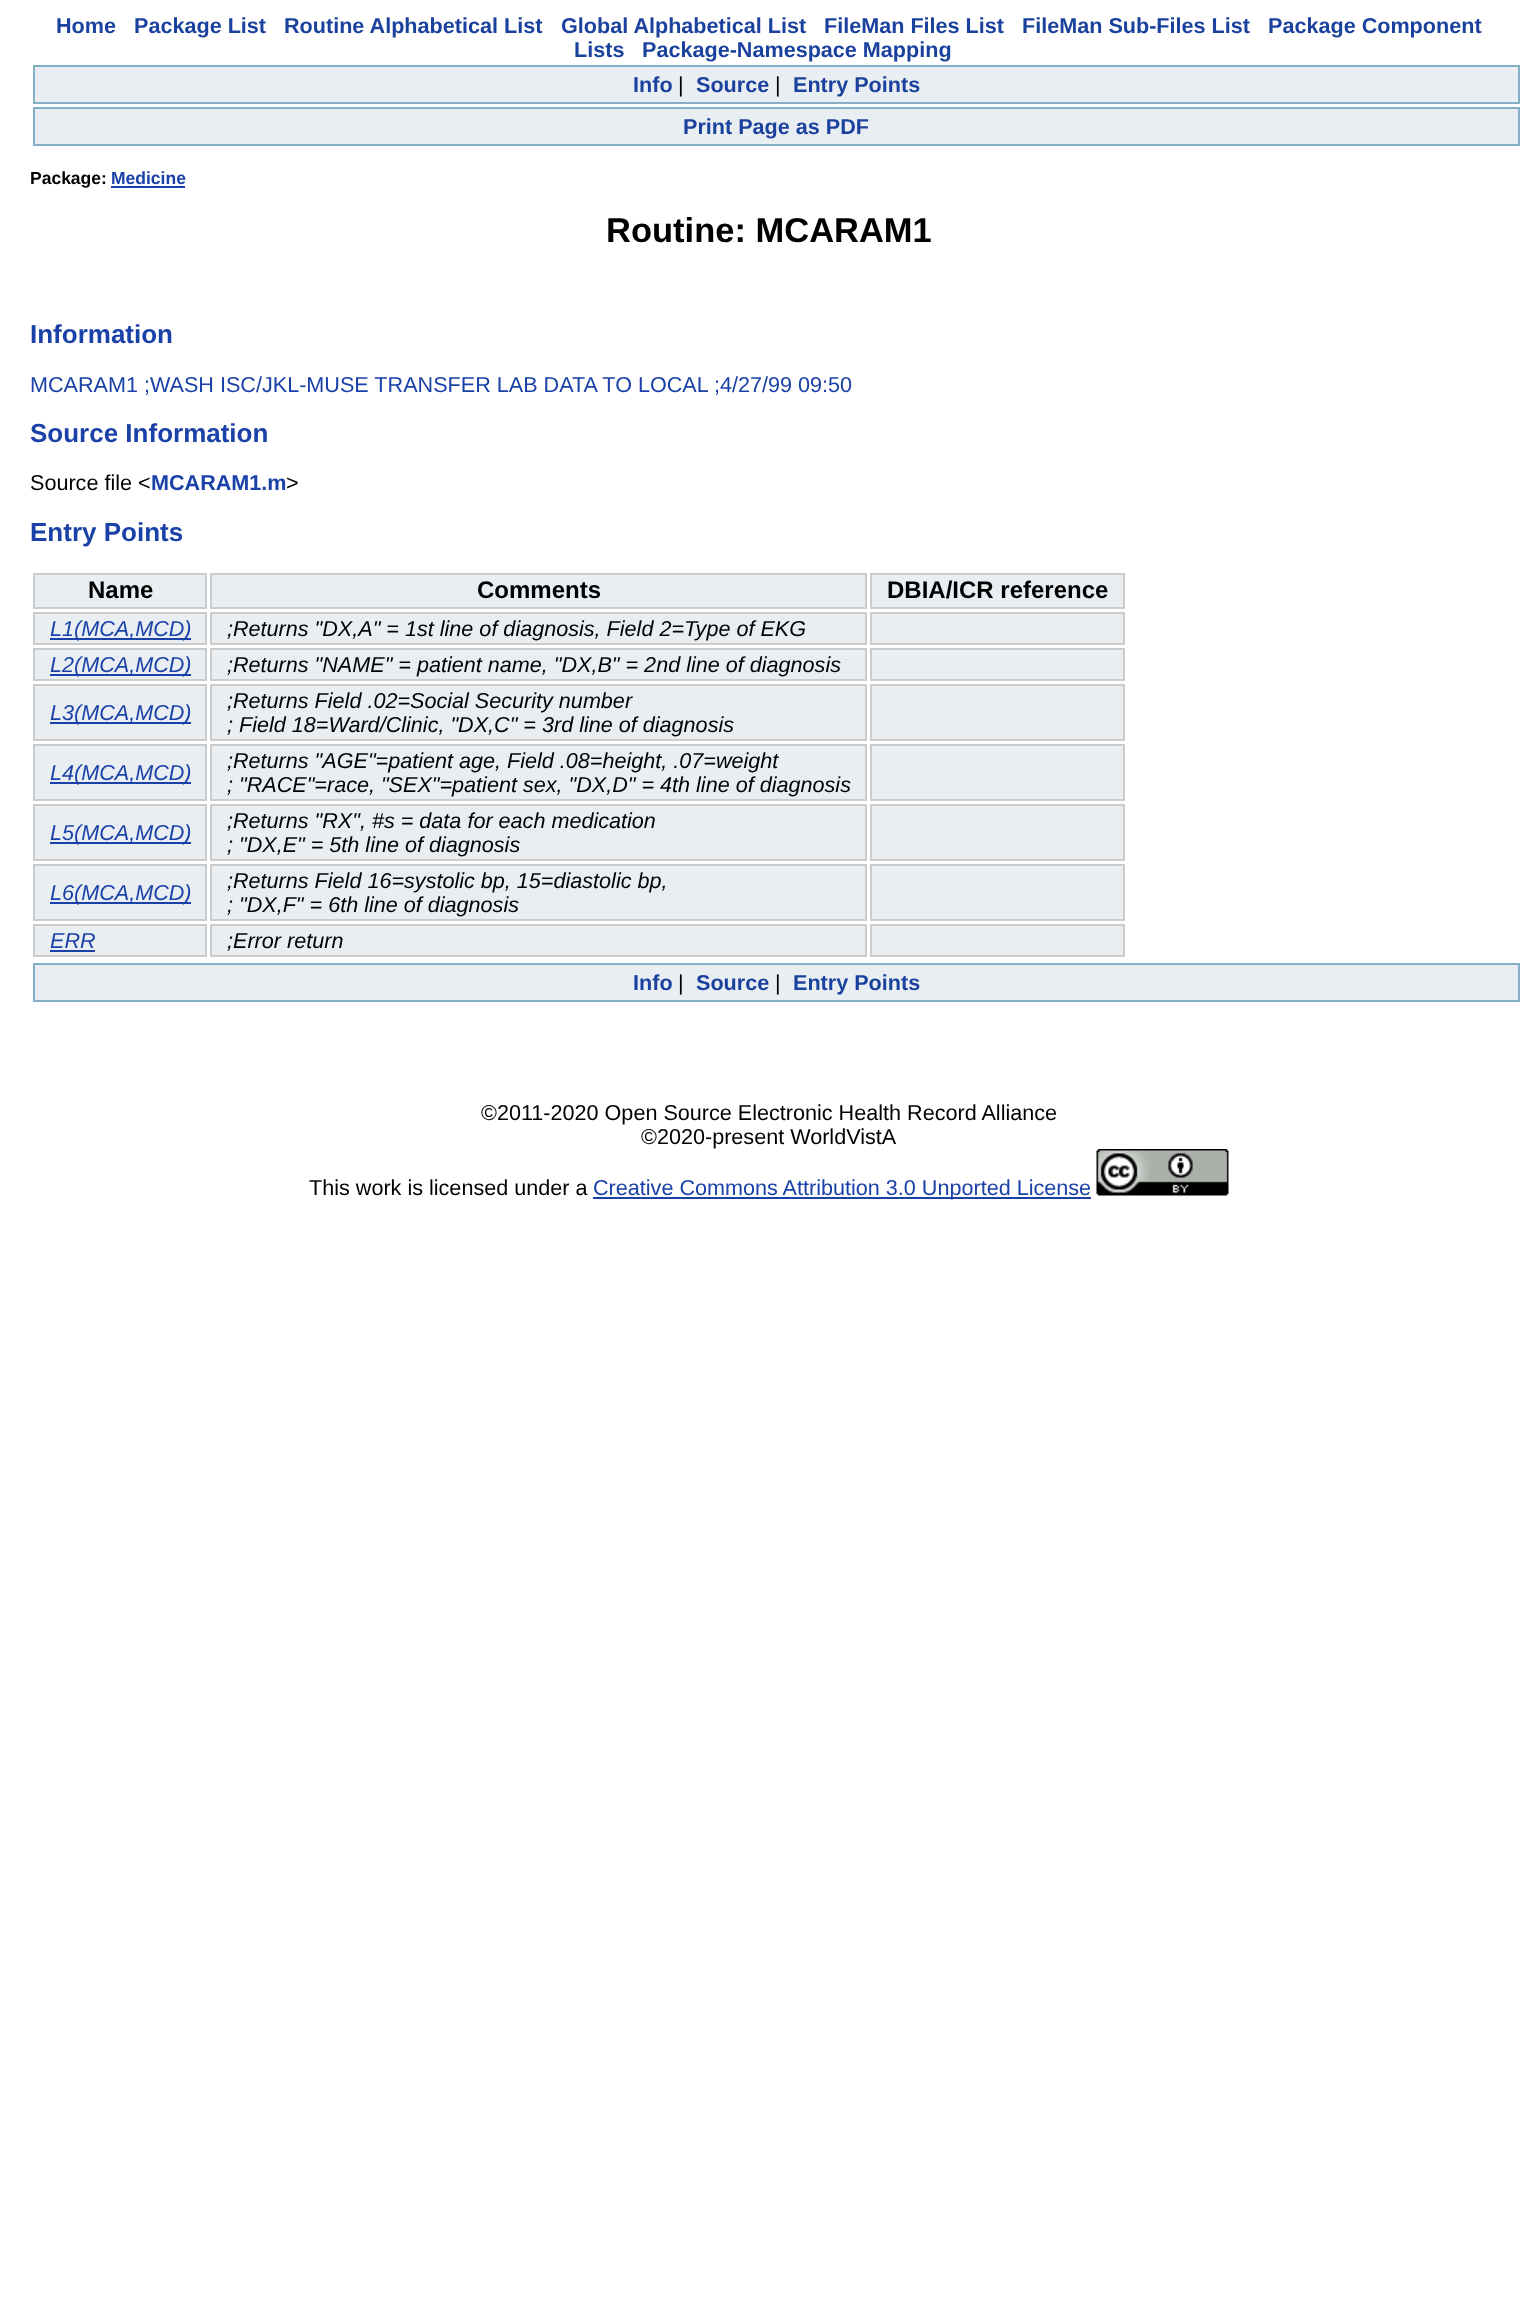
<!DOCTYPE html>
<meta charset="utf-8">
<style>body { margin: 0 } canvas { display: block }</style>
<canvas id="canvas" width="1537" height="2309"></canvas>
<script type="module">
  const canvas = document.getElementById("canvas");
  const ctx = canvas.getContext("2d");
  ctx.miterLimit = 4;
  ctx.fontKerning = "normal";
  async function loadImage(src) {
    const img = new Image();
    img.src = src;
    await img.decode();
    return img;
  }

  ctx.fillStyle = "#ffffff";
  ctx.fillRect(0, 0, 1537, 2309);
  ctx.font = "bold 21.6px Liberation Sans";
  ctx.fillStyle = "#1a419d";
  ctx.fillText("Home", 56, 33);
  ctx.fillText("Package List", 134, 33);
  ctx.fillText("Routine Alphabetical List", 284, 33);
  ctx.fillText("Global Alphabetical List", 561, 33);
  ctx.fillText("FileMan Files List", 824, 33);
  ctx.fillText("FileMan Sub-Files List", 1022, 33);
  ctx.fillText("Package Component", 1268, 33);
  ctx.fillText("Lists", 574, 57);
  ctx.fillText("Package-Namespace Mapping", 642, 57);
  ctx.fillStyle = "#e8eef2";
  ctx.beginPath();
  ctx.rect(34, 66, 1485, 37);
  ctx.fill();
  ctx.strokeStyle = "#84b0c7";
  ctx.lineWidth = 2;
  ctx.stroke();
  ctx.fillStyle = "#1a419d";
  ctx.fillText("Info", 633, 92);
  ctx.font = "21.6px Liberation Sans";
  ctx.fillStyle = "#000000";
  ctx.fillText("|", 678, 92);
  ctx.font = "bold 21.6px Liberation Sans";
  ctx.fillStyle = "#1a419d";
  ctx.fillText("Source", 696, 92);
  ctx.font = "21.6px Liberation Sans";
  ctx.fillStyle = "#000000";
  ctx.fillText("|", 775, 92);
  ctx.font = "bold 21.6px Liberation Sans";
  ctx.fillStyle = "#1a419d";
  ctx.fillText("Entry Points", 793, 92);
  ctx.fillStyle = "#e8eef2";
  ctx.beginPath();
  ctx.rect(34, 108, 1485, 37);
  ctx.fill();
  ctx.stroke();
  ctx.fillStyle = "#1a419d";
  ctx.fillText("Print Page as PDF", 683, 134);
  ctx.font = "bold 17.5px Liberation Sans";
  ctx.fillStyle = "#000000";
  ctx.fillText("Package:", 30, 184);
  ctx.fillStyle = "#1a41a8";
  ctx.fillText("Medicine", 111, 184);
  ctx.fillRect(111, 186, 74, 2);
  ctx.font = "bold 34.5px Liberation Sans";
  ctx.fillStyle = "#000000";
  ctx.fillText("Routine: MCARAM1", 606, 242);
  ctx.font = "bold 26px Liberation Sans";
  ctx.fillStyle = "#1a41a8";
  ctx.fillText("Information", 30, 343);
  ctx.font = "21.6px Liberation Sans";
  ctx.fillText("MCARAM1 ;WASH ISC/JKL-MUSE TRANSFER LAB DATA TO LOCAL ;4/27/99 09:50", 30, 392);
  ctx.font = "bold 26px Liberation Sans";
  ctx.fillText("Source Information", 30, 442);
  ctx.font = "21.6px Liberation Sans";
  ctx.fillStyle = "#000000";
  ctx.fillText("Source file <", 30, 490);
  ctx.font = "bold 21.6px Liberation Sans";
  ctx.fillStyle = "#1a41a8";
  ctx.fillText("MCARAM1.m", 151, 490);
  ctx.font = "21.6px Liberation Sans";
  ctx.fillStyle = "#000000";
  ctx.fillText(">", 286, 490);
  ctx.font = "bold 26px Liberation Sans";
  ctx.fillStyle = "#1a41a8";
  ctx.fillText("Entry Points", 30, 541);
  ctx.fillStyle = "#e8eef2";
  ctx.beginPath();
  ctx.rect(34, 574, 172, 34);
  ctx.fill();
  ctx.strokeStyle = "#cccccc";
  ctx.stroke();
  ctx.font = "bold 24px Liberation Sans";
  ctx.fillStyle = "#000000";
  ctx.fillText("Name", 88, 598);
  ctx.fillStyle = "#e8eef2";
  ctx.beginPath();
  ctx.rect(211, 574, 655, 34);
  ctx.fill();
  ctx.stroke();
  ctx.fillStyle = "#000000";
  ctx.fillText("Comments", 477, 598);
  ctx.fillStyle = "#e8eef2";
  ctx.beginPath();
  ctx.rect(871, 574, 253, 34);
  ctx.fill();
  ctx.stroke();
  ctx.fillStyle = "#000000";
  ctx.fillText("DBIA/ICR reference", 887, 598);
  ctx.fillStyle = "#e8eef2";
  ctx.beginPath();
  ctx.rect(34, 613, 172, 31);
  ctx.fill();
  ctx.stroke();
  ctx.fillStyle = "#1a41a8";
  ctx.fillRect(50, 638, 141, 2);
  ctx.font = "italic 21.6px Liberation Sans";
  ctx.fillText("L1(MCA,MCD)", 50, 636);
  ctx.fillStyle = "#e8eef2";
  ctx.beginPath();
  ctx.rect(211, 613, 655, 31);
  ctx.fill();
  ctx.stroke();
  ctx.fillStyle = "#000000";
  ctx.fillText(";Returns \"DX,A\" = 1st line of diagnosis, Field 2=Type of EKG", 227, 636);
  ctx.fillStyle = "#e8eef2";
  ctx.beginPath();
  ctx.rect(871, 613, 253, 31);
  ctx.fill();
  ctx.stroke();
  ctx.beginPath();
  ctx.rect(34, 649, 172, 31);
  ctx.fill();
  ctx.stroke();
  ctx.fillStyle = "#1a41a8";
  ctx.fillRect(50, 674, 141, 2);
  ctx.fillText("L2(MCA,MCD)", 50, 672);
  ctx.fillStyle = "#e8eef2";
  ctx.beginPath();
  ctx.rect(211, 649, 655, 31);
  ctx.fill();
  ctx.stroke();
  ctx.fillStyle = "#000000";
  ctx.fillText(";Returns \"NAME\" = patient name, \"DX,B\" = 2nd line of diagnosis", 227, 672);
  ctx.fillStyle = "#e8eef2";
  ctx.beginPath();
  ctx.rect(871, 649, 253, 31);
  ctx.fill();
  ctx.stroke();
  ctx.beginPath();
  ctx.rect(34, 685, 172, 55);
  ctx.fill();
  ctx.stroke();
  ctx.fillStyle = "#1a41a8";
  ctx.fillRect(50, 722, 141, 2);
  ctx.fillText("L3(MCA,MCD)", 50, 720);
  ctx.fillStyle = "#e8eef2";
  ctx.beginPath();
  ctx.rect(211, 685, 655, 55);
  ctx.fill();
  ctx.stroke();
  ctx.fillStyle = "#000000";
  ctx.fillText(";Returns Field .02=Social Security number", 227, 708);
  ctx.fillText("; Field 18=Ward/Clinic, \"DX,C\" = 3rd line of diagnosis", 227, 732);
  ctx.fillStyle = "#e8eef2";
  ctx.beginPath();
  ctx.rect(871, 685, 253, 55);
  ctx.fill();
  ctx.stroke();
  ctx.beginPath();
  ctx.rect(34, 745, 172, 55);
  ctx.fill();
  ctx.stroke();
  ctx.fillStyle = "#1a41a8";
  ctx.fillRect(50, 782, 141, 2);
  ctx.fillText("L4(MCA,MCD)", 50, 780);
  ctx.fillStyle = "#e8eef2";
  ctx.beginPath();
  ctx.rect(211, 745, 655, 55);
  ctx.fill();
  ctx.stroke();
  ctx.fillStyle = "#000000";
  ctx.fillText(";Returns \"AGE\"=patient age, Field .08=height, .07=weight", 227, 768);
  ctx.fillText("; \"RACE\"=race, \"SEX\"=patient sex, \"DX,D\" = 4th line of diagnosis", 227, 792);
  ctx.fillStyle = "#e8eef2";
  ctx.beginPath();
  ctx.rect(871, 745, 253, 55);
  ctx.fill();
  ctx.stroke();
  ctx.beginPath();
  ctx.rect(34, 805, 172, 55);
  ctx.fill();
  ctx.stroke();
  ctx.fillStyle = "#1a41a8";
  ctx.fillRect(50, 842, 141, 2);
  ctx.fillText("L5(MCA,MCD)", 50, 840);
  ctx.fillStyle = "#e8eef2";
  ctx.beginPath();
  ctx.rect(211, 805, 655, 55);
  ctx.fill();
  ctx.stroke();
  ctx.fillStyle = "#000000";
  ctx.fillText(";Returns \"RX\", #s = data for each medication", 227, 828);
  ctx.fillText("; \"DX,E\" = 5th line of diagnosis", 227, 852);
  ctx.fillStyle = "#e8eef2";
  ctx.beginPath();
  ctx.rect(871, 805, 253, 55);
  ctx.fill();
  ctx.stroke();
  ctx.beginPath();
  ctx.rect(34, 865, 172, 55);
  ctx.fill();
  ctx.stroke();
  ctx.fillStyle = "#1a41a8";
  ctx.fillRect(50, 902, 141, 2);
  ctx.fillText("L6(MCA,MCD)", 50, 900);
  ctx.fillStyle = "#e8eef2";
  ctx.beginPath();
  ctx.rect(211, 865, 655, 55);
  ctx.fill();
  ctx.stroke();
  ctx.fillStyle = "#000000";
  ctx.fillText(";Returns Field 16=systolic bp, 15=diastolic bp,", 227, 888);
  ctx.fillText("; \"DX,F\" = 6th line of diagnosis", 227, 912);
  ctx.fillStyle = "#e8eef2";
  ctx.beginPath();
  ctx.rect(871, 865, 253, 55);
  ctx.fill();
  ctx.stroke();
  ctx.beginPath();
  ctx.rect(34, 925, 172, 31);
  ctx.fill();
  ctx.stroke();
  ctx.fillStyle = "#1a41a8";
  ctx.fillText("ERR", 50, 948);
  ctx.fillRect(50, 950, 45, 2);
  ctx.fillStyle = "#e8eef2";
  ctx.beginPath();
  ctx.rect(211, 925, 655, 31);
  ctx.fill();
  ctx.stroke();
  ctx.fillStyle = "#000000";
  ctx.fillText(";Error return", 227, 948);
  ctx.fillStyle = "#e8eef2";
  ctx.beginPath();
  ctx.rect(871, 925, 253, 31);
  ctx.fill();
  ctx.stroke();
  ctx.beginPath();
  ctx.rect(34, 964, 1485, 37);
  ctx.fill();
  ctx.strokeStyle = "#84b0c7";
  ctx.stroke();
  ctx.font = "bold 21.6px Liberation Sans";
  ctx.fillStyle = "#1a419d";
  ctx.fillText("Info", 633, 990);
  ctx.font = "21.6px Liberation Sans";
  ctx.fillStyle = "#000000";
  ctx.fillText("|", 678, 990);
  ctx.font = "bold 21.6px Liberation Sans";
  ctx.fillStyle = "#1a419d";
  ctx.fillText("Source", 696, 990);
  ctx.font = "21.6px Liberation Sans";
  ctx.fillStyle = "#000000";
  ctx.fillText("|", 775, 990);
  ctx.font = "bold 21.6px Liberation Sans";
  ctx.fillStyle = "#1a419d";
  ctx.fillText("Entry Points", 793, 990);
  ctx.font = "21.6px Liberation Sans";
  ctx.fillStyle = "#000000";
  ctx.fillText("©2011-2020 Open Source Electronic Health Record Alliance", 481, 1120);
  ctx.fillText("©2020-present WorldVistA", 641, 1144);
  ctx.fillText("This work is licensed under a", 309, 1195);
  ctx.fillStyle = "#1a41a8";
  ctx.fillRect(593, 1197, 498, 2);
  ctx.fillText("Creative Commons Attribution 3.0 Unported License", 593, 1195);
  ctx.drawImage(await loadImage("img1.png"), 1096, 1149, 133, 47);
</script>
